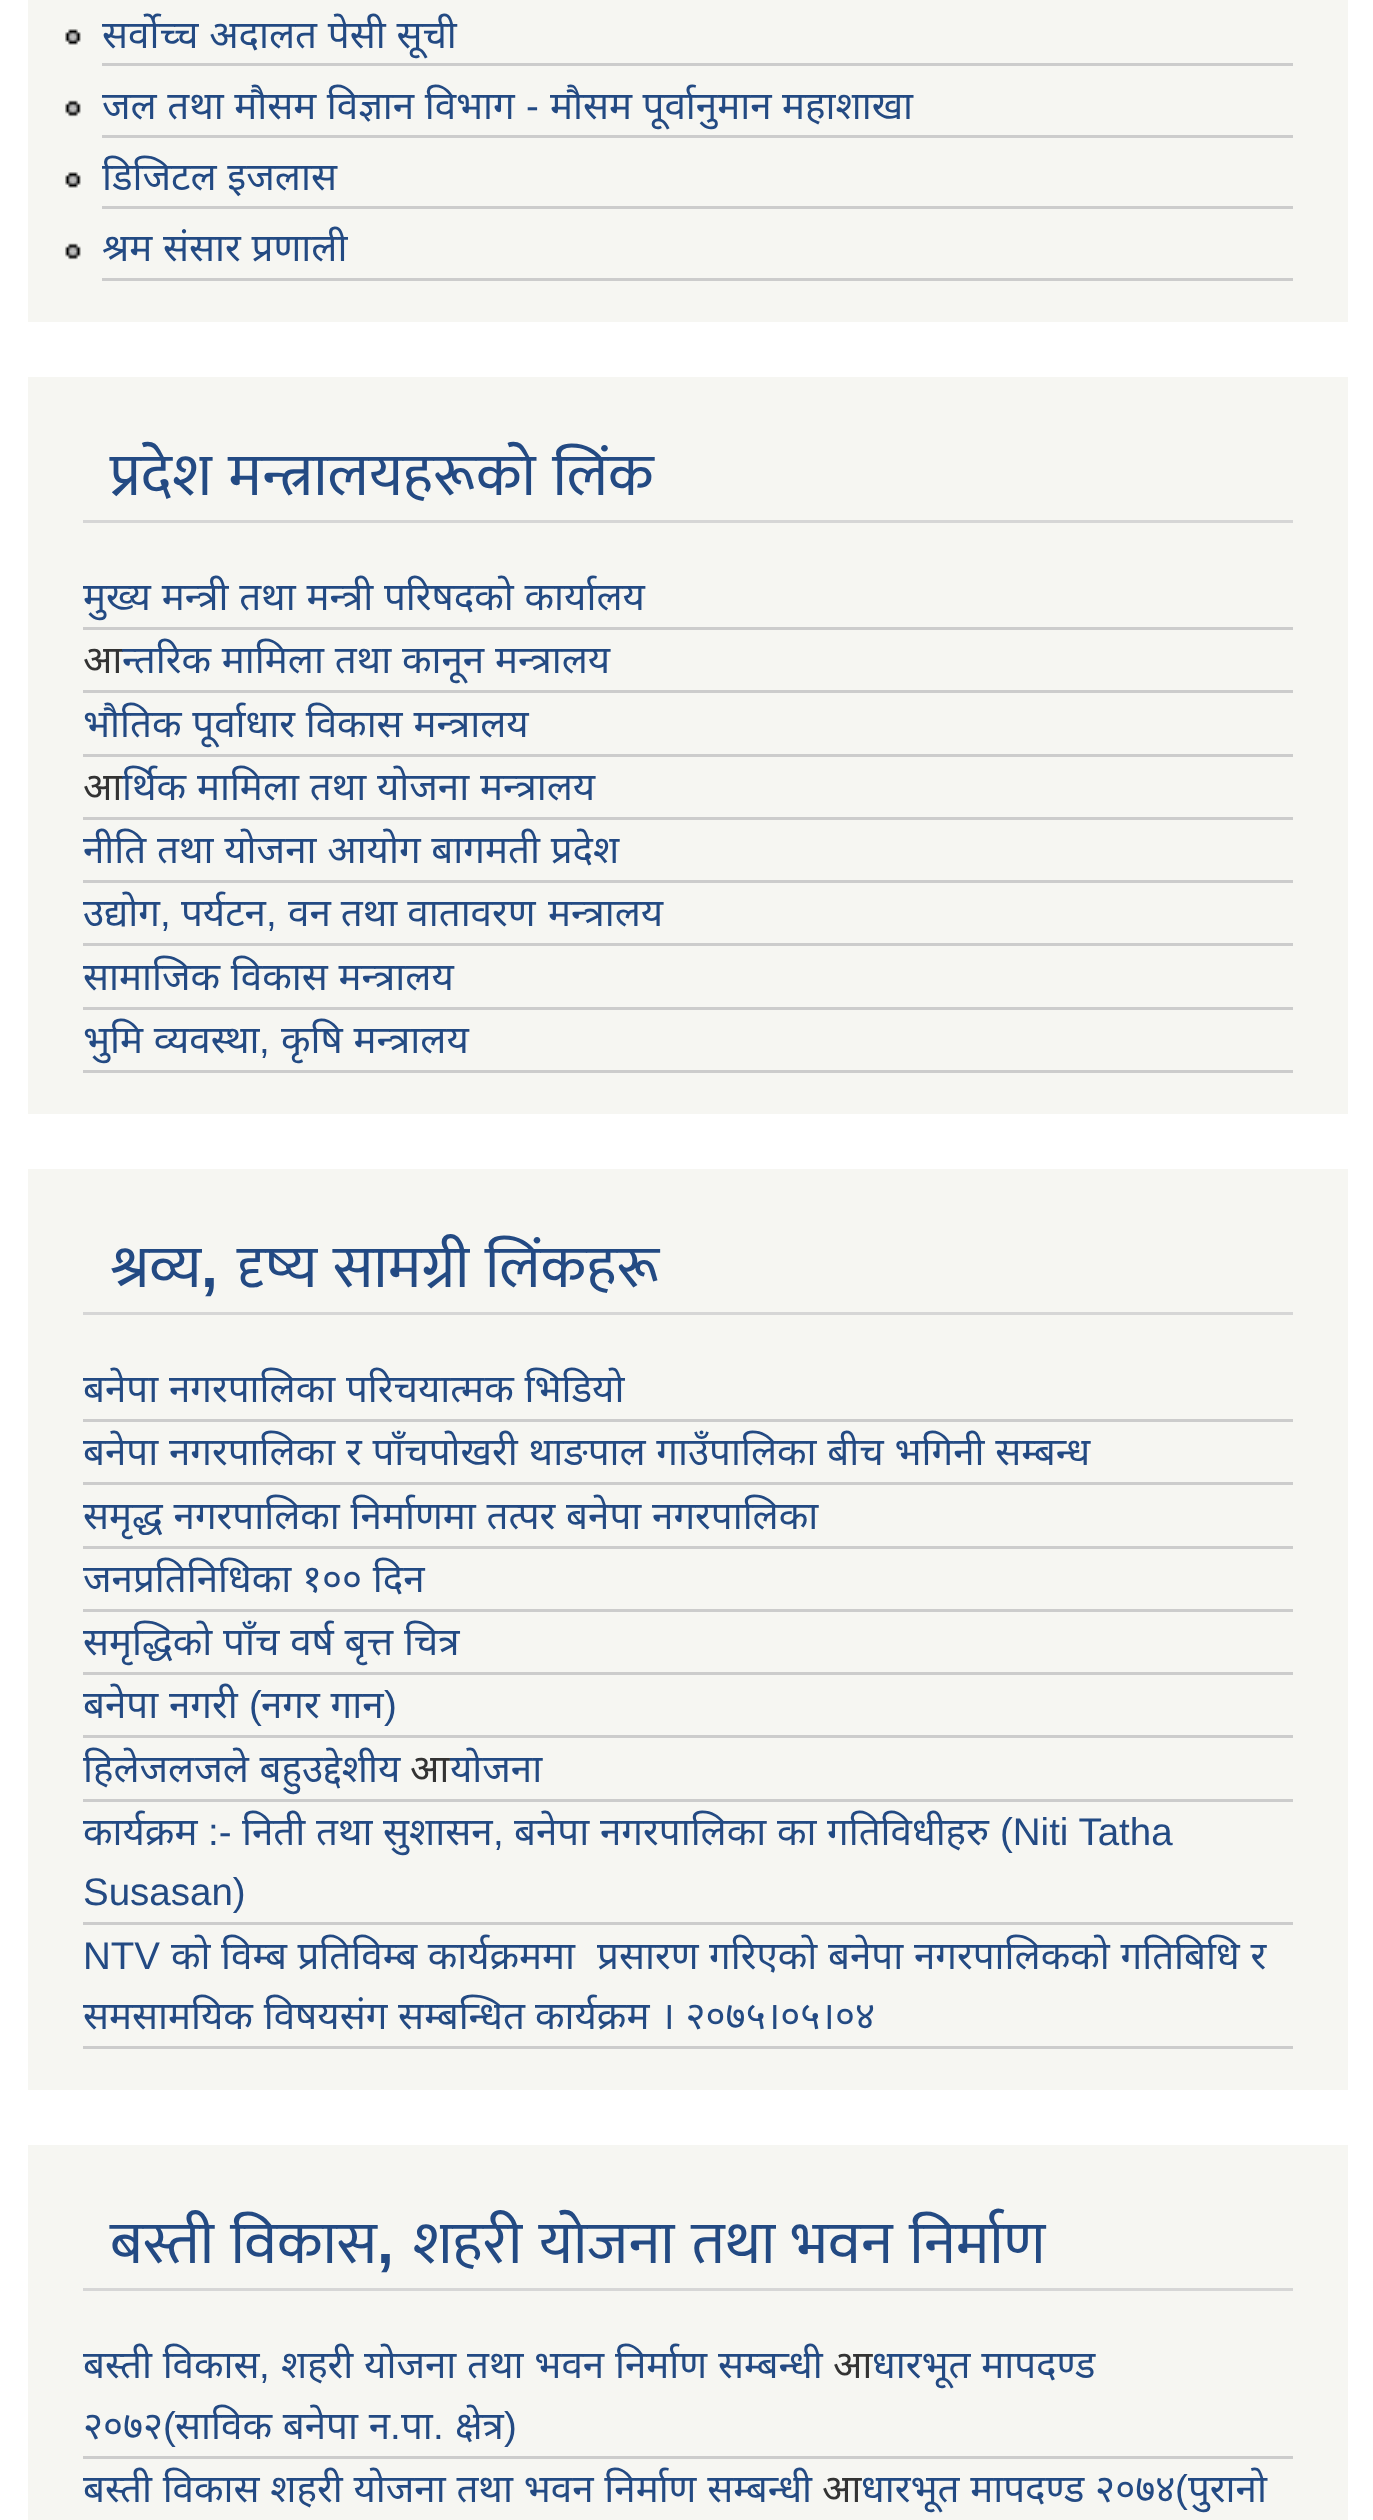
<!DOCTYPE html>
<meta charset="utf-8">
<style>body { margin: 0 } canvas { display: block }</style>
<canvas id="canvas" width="1373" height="2520"></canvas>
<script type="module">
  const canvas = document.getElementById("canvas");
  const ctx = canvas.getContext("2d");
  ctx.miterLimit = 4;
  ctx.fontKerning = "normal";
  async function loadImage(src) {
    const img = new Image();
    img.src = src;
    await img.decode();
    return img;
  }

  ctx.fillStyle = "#ffffff";
  ctx.fillRect(0, 0, 1373, 2520);
  ctx.fillStyle = "#f6f6f2";
  ctx.fillRect(28, 0, 1320, 322);
  ctx.fillStyle = "#cccccc";
  ctx.fillRect(102, 63, 1191, 3);
  ctx.drawImage(await loadImage("img1.png"), 65, 29, 16, 16);
  ctx.wordSpacing = "0.75px";
  ctx.font = "38.5px Noto Sans";
  ctx.fillStyle = "#234a83";
  ctx.fillText("सर्वोच्च अदालत पेसी सूची", 102, 48);
  ctx.fillStyle = "#cccccc";
  ctx.fillRect(102, 135, 1191, 3);
  ctx.drawImage(await loadImage("img2.png"), 65, 100, 16, 17);
  ctx.wordSpacing = "0.5px";
  ctx.fillStyle = "#234a83";
  ctx.fillText("जल तथा मौसम विज्ञान विभाग", 102, 119);
  ctx.wordSpacing = "0px";
  ctx.font = "38.5px Liberation Sans";
  ctx.fillText("-", 526, 119);
  ctx.wordSpacing = "0.5px";
  ctx.font = "38.5px Noto Sans";
  ctx.fillText("मौसम पूर्वानुमान महाशाखा", 550, 119);
  ctx.fillStyle = "#cccccc";
  ctx.fillRect(102, 206, 1191, 3);
  ctx.drawImage(await loadImage("img1.png"), 65, 172, 16, 16);
  ctx.wordSpacing = "0.75px";
  ctx.fillStyle = "#234a83";
  ctx.fillText("डिजिटल इजलास", 102, 190);
  ctx.fillStyle = "#cccccc";
  ctx.fillRect(102, 278, 1191, 3);
  ctx.drawImage(await loadImage("img2.png"), 65, 243, 16, 17);
  ctx.fillStyle = "#234a83";
  ctx.fillText("श्रम संसार प्रणाली", 102, 261);
  ctx.fillStyle = "#f6f6f2";
  ctx.fillRect(28, 377, 1320, 737);
  ctx.fillStyle = "#d6d6d6";
  ctx.fillRect(83, 520, 1210, 3);
  ctx.wordSpacing = "3px";
  ctx.font = "60.5px Mukta";
  ctx.fillStyle = "#234a83";
  ctx.fillText("प्रदेश मन्त्रालयहरूको लिंक", 110, 495);
  ctx.fillStyle = "#cccccc";
  ctx.fillRect(83, 627, 1210, 3);
  ctx.wordSpacing = "0.75px";
  ctx.font = "38.5px Noto Sans";
  ctx.fillStyle = "#234a83";
  ctx.fillText("मुख्य मन्त्री तथा मन्त्री परिषदको कार्यालय", 83, 610);
  ctx.fillStyle = "#cccccc";
  ctx.fillRect(83, 690, 1210, 3);
  ctx.wordSpacing = "0px";
  ctx.fillStyle = "#333333";
  ctx.fillText("आ", 83, 673);
  ctx.wordSpacing = "0.75px";
  ctx.fillStyle = "#234a83";
  ctx.fillText("न्तरिक मामिला तथा कानून मन्त्रालय", 122, 673);
  ctx.fillStyle = "#cccccc";
  ctx.fillRect(83, 754, 1210, 3);
  ctx.fillStyle = "#234a83";
  ctx.fillText("भाैतिक पूर्वाधार विकास मन्त्रालय", 83, 737);
  ctx.fillStyle = "#cccccc";
  ctx.fillRect(83, 817, 1210, 3);
  ctx.wordSpacing = "0px";
  ctx.fillStyle = "#333333";
  ctx.fillText("आ", 83, 800);
  ctx.wordSpacing = "0.75px";
  ctx.fillStyle = "#234a83";
  ctx.fillText("र्थिक मामिला तथा योजना मन्त्रालय", 122, 800);
  ctx.fillStyle = "#cccccc";
  ctx.fillRect(83, 880, 1210, 3);
  ctx.fillStyle = "#234a83";
  ctx.fillText("नीति तथा योजना आयोग बागमती प्रदेश", 83, 863);
  ctx.fillStyle = "#cccccc";
  ctx.fillRect(83, 943, 1210, 3);
  ctx.wordSpacing = "0px";
  ctx.fillStyle = "#234a83";
  ctx.fillText("उद्योग", 83, 926);
  ctx.font = "38.5px Liberation Sans";
  ctx.fillText(",", 160, 926);
  ctx.font = "38.5px Noto Sans";
  ctx.fillText("पर्यटन", 181, 926);
  ctx.font = "38.5px Liberation Sans";
  ctx.fillText(",", 266, 926);
  ctx.font = "38.5px Noto Sans";
  ctx.fillText("वन तथा वातावरण", 288, 926);
  ctx.fillText("मन्त्रालय", 548, 926);
  ctx.fillStyle = "#cccccc";
  ctx.fillRect(83, 1007, 1210, 3);
  ctx.wordSpacing = "0.75px";
  ctx.fillStyle = "#234a83";
  ctx.fillText("सामाजिक विकास मन्त्रालय", 83, 990);
  ctx.fillStyle = "#cccccc";
  ctx.fillRect(83, 1070, 1210, 3);
  ctx.fillStyle = "#234a83";
  ctx.fillText("भुमि व्यवस्था", 83, 1053);
  ctx.wordSpacing = "0px";
  ctx.font = "38.5px Liberation Sans";
  ctx.fillText(",", 259, 1053);
  ctx.wordSpacing = "0.75px";
  ctx.font = "38.5px Noto Sans";
  ctx.fillText("कृषि मन्त्रालय", 281, 1053);
  ctx.fillStyle = "#f6f6f2";
  ctx.fillRect(28, 1169, 1320, 921);
  ctx.fillStyle = "#d6d6d6";
  ctx.fillRect(83, 1312, 1210, 3);
  ctx.wordSpacing = "0px";
  ctx.font = "60.5px Mukta";
  ctx.fillStyle = "#234a83";
  ctx.fillText("श्रव्य", 110, 1287);
  ctx.font = "bold 60.5px Liberation Sans";
  ctx.fillText(",", 201, 1287);
  ctx.wordSpacing = "2px";
  ctx.font = "60.5px Mukta";
  ctx.fillText("दृष्य सामग्री लिंकहरू", 237, 1287);
  ctx.fillStyle = "#cccccc";
  ctx.fillRect(83, 1419, 1210, 3);
  ctx.wordSpacing = "0.75px";
  ctx.font = "38.5px Noto Sans";
  ctx.fillStyle = "#234a83";
  ctx.fillText("बनेपा नगरपालिका परिचयात्मक भिडियो", 83, 1402);
  ctx.fillStyle = "#cccccc";
  ctx.fillRect(83, 1482, 1210, 3);
  ctx.fillStyle = "#234a83";
  ctx.fillText("बनेपा नगरपालिका र पाँचपोखरी थाङपाल गाउँपालिका बीच भगिनी सम्बन्ध", 83, 1465);
  ctx.fillStyle = "#cccccc";
  ctx.fillRect(83, 1546, 1210, 3);
  ctx.fillStyle = "#234a83";
  ctx.fillText("समृद्ध नगरपालिका निर्माणमा तत्पर बनेपा नगरपालिका", 83, 1529);
  ctx.fillStyle = "#cccccc";
  ctx.fillRect(83, 1609, 1210, 3);
  ctx.fillStyle = "#234a83";
  ctx.fillText("जनप्रतिनिधिका १०० दिन", 83, 1592);
  ctx.fillStyle = "#cccccc";
  ctx.fillRect(83, 1672, 1210, 3);
  ctx.fillStyle = "#234a83";
  ctx.fillText("समृद्धिको पाँच वर्ष बृत्त चित्र", 83, 1655);
  ctx.fillStyle = "#cccccc";
  ctx.fillRect(83, 1735, 1210, 3);
  ctx.fillStyle = "#234a83";
  ctx.fillText("बनेपा नगरी", 83, 1718);
  ctx.wordSpacing = "0px";
  ctx.font = "38.5px Liberation Sans";
  ctx.fillText("(", 249, 1718);
  ctx.wordSpacing = "0.75px";
  ctx.font = "38.5px Noto Sans";
  ctx.fillText("नगर गान", 261, 1718);
  ctx.wordSpacing = "0px";
  ctx.font = "38.5px Liberation Sans";
  ctx.fillText(")", 384, 1718);
  ctx.fillStyle = "#cccccc";
  ctx.fillRect(83, 1799, 1210, 3);
  ctx.wordSpacing = "0.75px";
  ctx.font = "38.5px Noto Sans";
  ctx.fillStyle = "#234a83";
  ctx.fillText("हिलेजलजले बहुउद्देशीय", 83, 1782);
  ctx.wordSpacing = "0px";
  ctx.fillStyle = "#333333";
  ctx.fillText("आ", 410, 1782);
  ctx.fillStyle = "#234a83";
  ctx.fillText("योजना", 450, 1782);
  ctx.fillStyle = "#cccccc";
  ctx.fillRect(83, 1922, 1210, 3);
  ctx.fillStyle = "#234a83";
  ctx.fillText("कार्यक्रम", 83, 1845);
  ctx.font = "38.5px Liberation Sans";
  ctx.fillText(":-", 208, 1845);
  ctx.font = "38.5px Noto Sans";
  ctx.fillText("निती", 242, 1845);
  ctx.fillText("तथा", 316, 1845);
  ctx.fillText("सुशासन", 383, 1845);
  ctx.font = "38.5px Liberation Sans";
  ctx.fillText(",", 493, 1845);
  ctx.font = "38.5px Noto Sans";
  ctx.fillText("बनेपा", 514, 1845);
  ctx.fillText("नगरपालिका", 600, 1845);
  ctx.fillText("का", 777, 1845);
  ctx.fillText("गतिविधीहरु", 827, 1845);
  ctx.font = "38.5px Liberation Sans";
  ctx.fillText("(Niti Tatha", 1000, 1845);
  ctx.fillText("Susasan)", 83, 1905);
  ctx.fillStyle = "#cccccc";
  ctx.fillRect(83, 2046, 1210, 3);
  ctx.fillStyle = "#234a83";
  ctx.fillText("NTV", 83, 1969);
  ctx.wordSpacing = "0.5px";
  ctx.font = "38.5px Noto Sans";
  ctx.fillText("को विम्ब प्रतिविम्ब कार्यक्रममा", 171, 1969);
  ctx.fillText("प्रसारण गरिएको", 597, 1969);
  ctx.wordSpacing = "0.75px";
  ctx.fillText("बनेपा नगरपालिकको गतिबिधि र", 828, 1969);
  ctx.fillText("समसामयिक विषयसंग सम्बन्धित", 83, 2029);
  ctx.fillText("कार्यक्रम । २०७५।०५।०४", 535, 2029);
  ctx.fillStyle = "#f6f6f2";
  ctx.fillRect(28, 2145, 1320, 375);
  ctx.fillStyle = "#d6d6d6";
  ctx.fillRect(83, 2288, 1210, 3);
  ctx.wordSpacing = "3px";
  ctx.font = "60.5px Mukta";
  ctx.fillStyle = "#234a83";
  ctx.fillText("बस्ती विकास", 110, 2263);
  ctx.wordSpacing = "0px";
  ctx.font = "bold 60.5px Liberation Sans";
  ctx.fillText(",", 377, 2263);
  ctx.wordSpacing = "3px";
  ctx.font = "60.5px Mukta";
  ctx.fillText("शहरी योजना तथा भवन निर्माण", 413, 2263);
  ctx.fillStyle = "#cccccc";
  ctx.fillRect(83, 2456, 1210, 3);
  ctx.wordSpacing = "0.75px";
  ctx.font = "38.5px Noto Sans";
  ctx.fillStyle = "#234a83";
  ctx.fillText("बस्ती विकास", 83, 2378);
  ctx.wordSpacing = "0px";
  ctx.font = "38.5px Liberation Sans";
  ctx.fillText(",", 259, 2378);
  ctx.wordSpacing = "0.75px";
  ctx.font = "38.5px Noto Sans";
  ctx.fillText("शहरी योजना तथा भवन निर्माण सम्बन्धी", 281, 2378);
  ctx.wordSpacing = "0px";
  ctx.fillStyle = "#333333";
  ctx.fillText("आ", 833, 2378);
  ctx.wordSpacing = "0.75px";
  ctx.fillStyle = "#234a83";
  ctx.fillText("धारभूत मापदण्ड", 872, 2378);
  ctx.wordSpacing = "0px";
  ctx.fillText("२०७२", 83, 2439);
  ctx.font = "38.5px Liberation Sans";
  ctx.fillText("(", 163, 2439);
  ctx.wordSpacing = "0.75px";
  ctx.font = "38.5px Noto Sans";
  ctx.fillText("साविक बनेपा न", 175, 2439);
  ctx.wordSpacing = "0px";
  ctx.font = "38.5px Liberation Sans";
  ctx.fillText(".", 390, 2439);
  ctx.font = "38.5px Noto Sans";
  ctx.fillText("पा", 401, 2439);
  ctx.font = "38.5px Liberation Sans";
  ctx.fillText(".", 433, 2439);
  ctx.font = "38.5px Noto Sans";
  ctx.fillText("क्षेत्र", 455, 2439);
  ctx.font = "38.5px Liberation Sans";
  ctx.fillText(")", 504, 2439);
  ctx.wordSpacing = "0.75px";
  ctx.font = "38.5px Noto Sans";
  ctx.fillText("बस्ती विकास शहरी योजना तथा भवन निर्माण सम्बन्धी", 83, 2502);
  ctx.wordSpacing = "0px";
  ctx.fillStyle = "#333333";
  ctx.fillText("आ", 822, 2502);
  ctx.wordSpacing = "0.75px";
  ctx.fillStyle = "#234a83";
  ctx.fillText("धारभूत मापदण्ड २०७४", 861, 2502);
  ctx.wordSpacing = "0px";
  ctx.font = "38.5px Liberation Sans";
  ctx.fillText("(", 1175, 2502);
  ctx.font = "38.5px Noto Sans";
  ctx.fillText("पुरानो", 1188, 2502);
</script>
